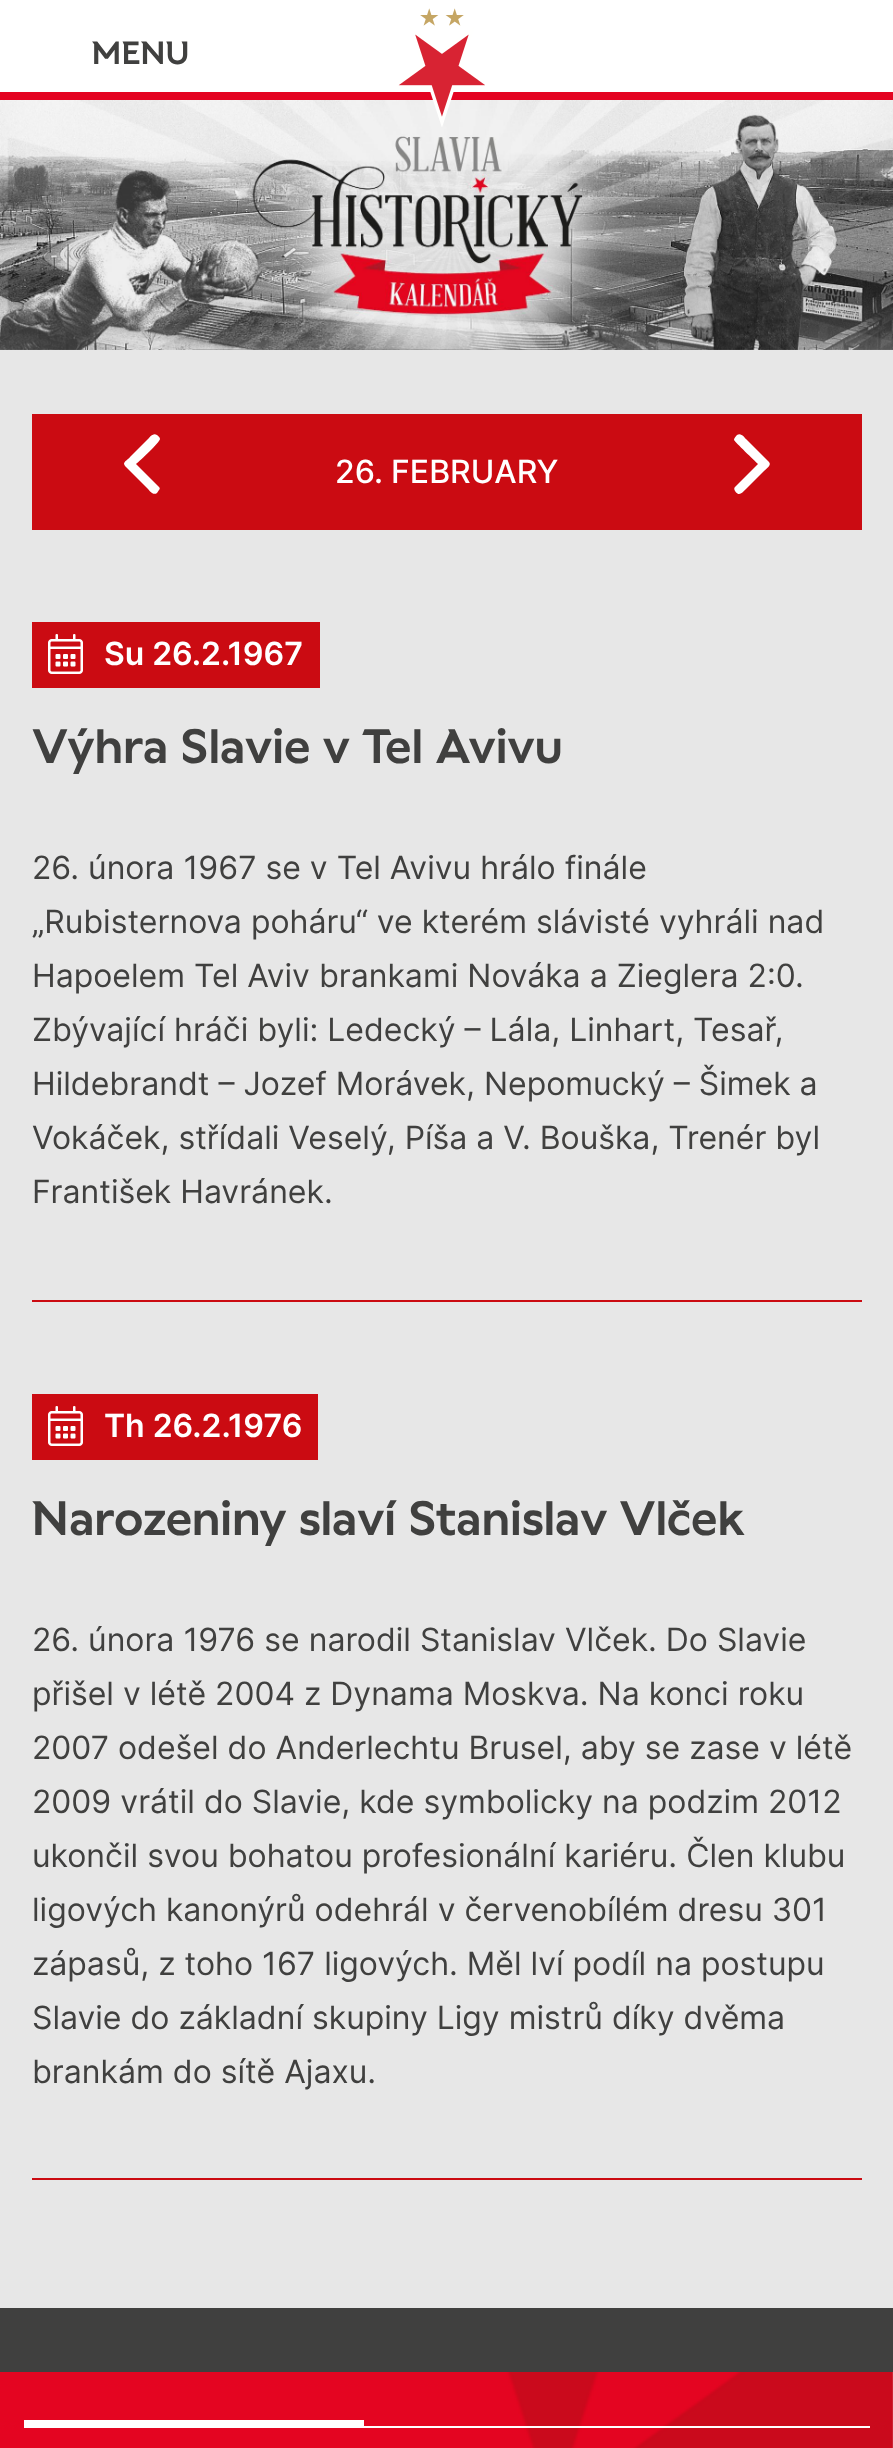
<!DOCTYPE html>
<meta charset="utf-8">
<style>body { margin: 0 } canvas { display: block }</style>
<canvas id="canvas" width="893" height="2448"></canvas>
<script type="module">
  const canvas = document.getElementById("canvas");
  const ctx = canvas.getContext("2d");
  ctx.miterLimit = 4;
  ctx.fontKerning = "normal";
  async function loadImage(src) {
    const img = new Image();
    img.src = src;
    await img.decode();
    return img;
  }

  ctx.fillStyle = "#e7e7e7";
  ctx.fillRect(0, 0, 893, 2448);
  ctx.fillStyle = "#ffffff";
  ctx.fillRect(0, 0, 893, 92);
  ctx.fillStyle = "#e40321";
  ctx.fillRect(0, 92, 893, 8);
  ctx.font = "600 32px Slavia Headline";
  ctx.fillStyle = "#40403f";
  ctx.fillText("MENU", 92, 64);
  ctx.drawImage(await loadImage("img2.png"), 0, 100, 893, 250);
  ctx.drawImage(await loadImage("img1.png"), 398, 8, 87, 119);
  ctx.fillStyle = "#cb0b12";
  ctx.fillRect(32, 414, 830, 116);
  ctx.fillStyle = "#ffffff";
  ctx.beginPath();
  ctx.moveTo(136, 464);
  ctx.bezierCurveTo(140, 461, 160, 442, 160, 439);
  ctx.bezierCurveTo(160, 437, 158, 436, 157, 435);
  ctx.bezierCurveTo(153, 432, 149, 438, 148, 439);
  ctx.lineTo(130, 457);
  ctx.bezierCurveTo(129, 459, 124, 461, 124, 464);
  ctx.lineTo(125, 466);
  ctx.lineTo(148, 489);
  ctx.bezierCurveTo(149, 490, 153, 496, 157, 493);
  ctx.lineTo(159, 490);
  ctx.bezierCurveTo(160, 489, 160, 488, 159, 487);
  ctx.closePath();
  ctx.fill();
  ctx.font = "500 32px Inter";
  ctx.fillText("26. FEBRUARY", 335, 483);
  ctx.beginPath();
  ctx.moveTo(769, 462);
  ctx.lineTo(746, 439);
  ctx.bezierCurveTo(745, 438, 741, 432, 737, 435);
  ctx.bezierCurveTo(736, 436, 734, 438, 734, 440);
  ctx.bezierCurveTo(735, 442, 755, 461, 758, 464);
  ctx.lineTo(735, 487);
  ctx.bezierCurveTo(734, 488, 734, 489, 735, 491);
  ctx.bezierCurveTo(739, 497, 742, 493, 746, 489);
  ctx.lineTo(764, 471);
  ctx.bezierCurveTo(766, 469, 772, 465, 769, 462);
  ctx.closePath();
  ctx.fill();
  ctx.fillStyle = "#cb0b12";
  ctx.fillRect(32, 1300, 830, 2);
  ctx.fillRect(32, 622, 288, 66);
  ctx.drawImage(await loadImage("img3.png"), 48, 634, 35, 40);
  ctx.font = "600 32px Inter";
  ctx.fillStyle = "#ffffff";
  ctx.fillText("Su 26.2.1967", 104, 665);
  ctx.font = "600 48px Slavia Headline";
  ctx.fillStyle = "#40403f";
  ctx.fillText("Výhra Slavie v Tel Avivu", 32, 763);
  ctx.font = "32px Inter";
  ctx.fillText("26. února 1967 se v Tel Avivu hrálo finále", 32, 879);
  ctx.fillText("„Rubisternova poháru“ ve kterém slávisté vyhráli nad", 32, 933);
  ctx.fillText("Hapoelem Tel Aviv brankami Nováka a Zieglera 2:0.", 32, 987);
  ctx.fillText("Zbývající hráči byli: Ledecký – Lála, Linhart, Tesař,", 32, 1041);
  ctx.fillText("Hildebrandt – Jozef Morávek, Nepomucký – Šimek a", 32, 1095);
  ctx.fillText("Vokáček, střídali Veselý, Píša a V. Bouška, Trenér byl", 32, 1149);
  ctx.fillText("František Havránek.", 32, 1203);
  ctx.fillStyle = "#cb0b12";
  ctx.fillRect(32, 2178, 830, 2);
  ctx.fillRect(32, 1394, 286, 66);
  ctx.drawImage(await loadImage("img3.png"), 48, 1406, 35, 40);
  ctx.font = "600 32px Inter";
  ctx.fillStyle = "#ffffff";
  ctx.fillText("Th 26.2.1976", 104, 1437);
  ctx.font = "600 48px Slavia Headline";
  ctx.fillStyle = "#40403f";
  ctx.fillText("Narozeniny slaví Stanislav Vlček", 32, 1535);
  ctx.font = "32px Inter";
  ctx.fillText("26. února 1976 se narodil Stanislav Vlček. Do Slavie", 32, 1651);
  ctx.fillText("přišel v létě 2004 z Dynama Moskva. Na konci roku", 32, 1705);
  ctx.fillText("2007 odešel do Anderlechtu Brusel, aby se zase v létě", 32, 1759);
  ctx.fillText("2009 vrátil do Slavie, kde symbolicky na podzim 2012", 32, 1813);
  ctx.fillText("ukončil svou bohatou profesionální kariéru. Člen klubu", 32, 1867);
  ctx.fillText("ligových kanonýrů odehrál v červenobílém dresu 301", 32, 1921);
  ctx.fillText("zápasů, z toho 167 ligových. Měl lví podíl na postupu", 32, 1975);
  ctx.fillText("Slavie do základní skupiny Ligy mistrů díky dvěma", 32, 2029);
  ctx.fillText("brankám do sítě Ajaxu.", 32, 2083);
  ctx.fillRect(0, 2308, 893, 64);
  ctx.drawImage(await loadImage("img4.png"), 0, 2372, 893, 76);
  ctx.fillStyle = "#ffffff";
  ctx.fillRect(24, 2426, 846, 2);
  ctx.fillRect(24, 2420, 340, 6);
</script>
